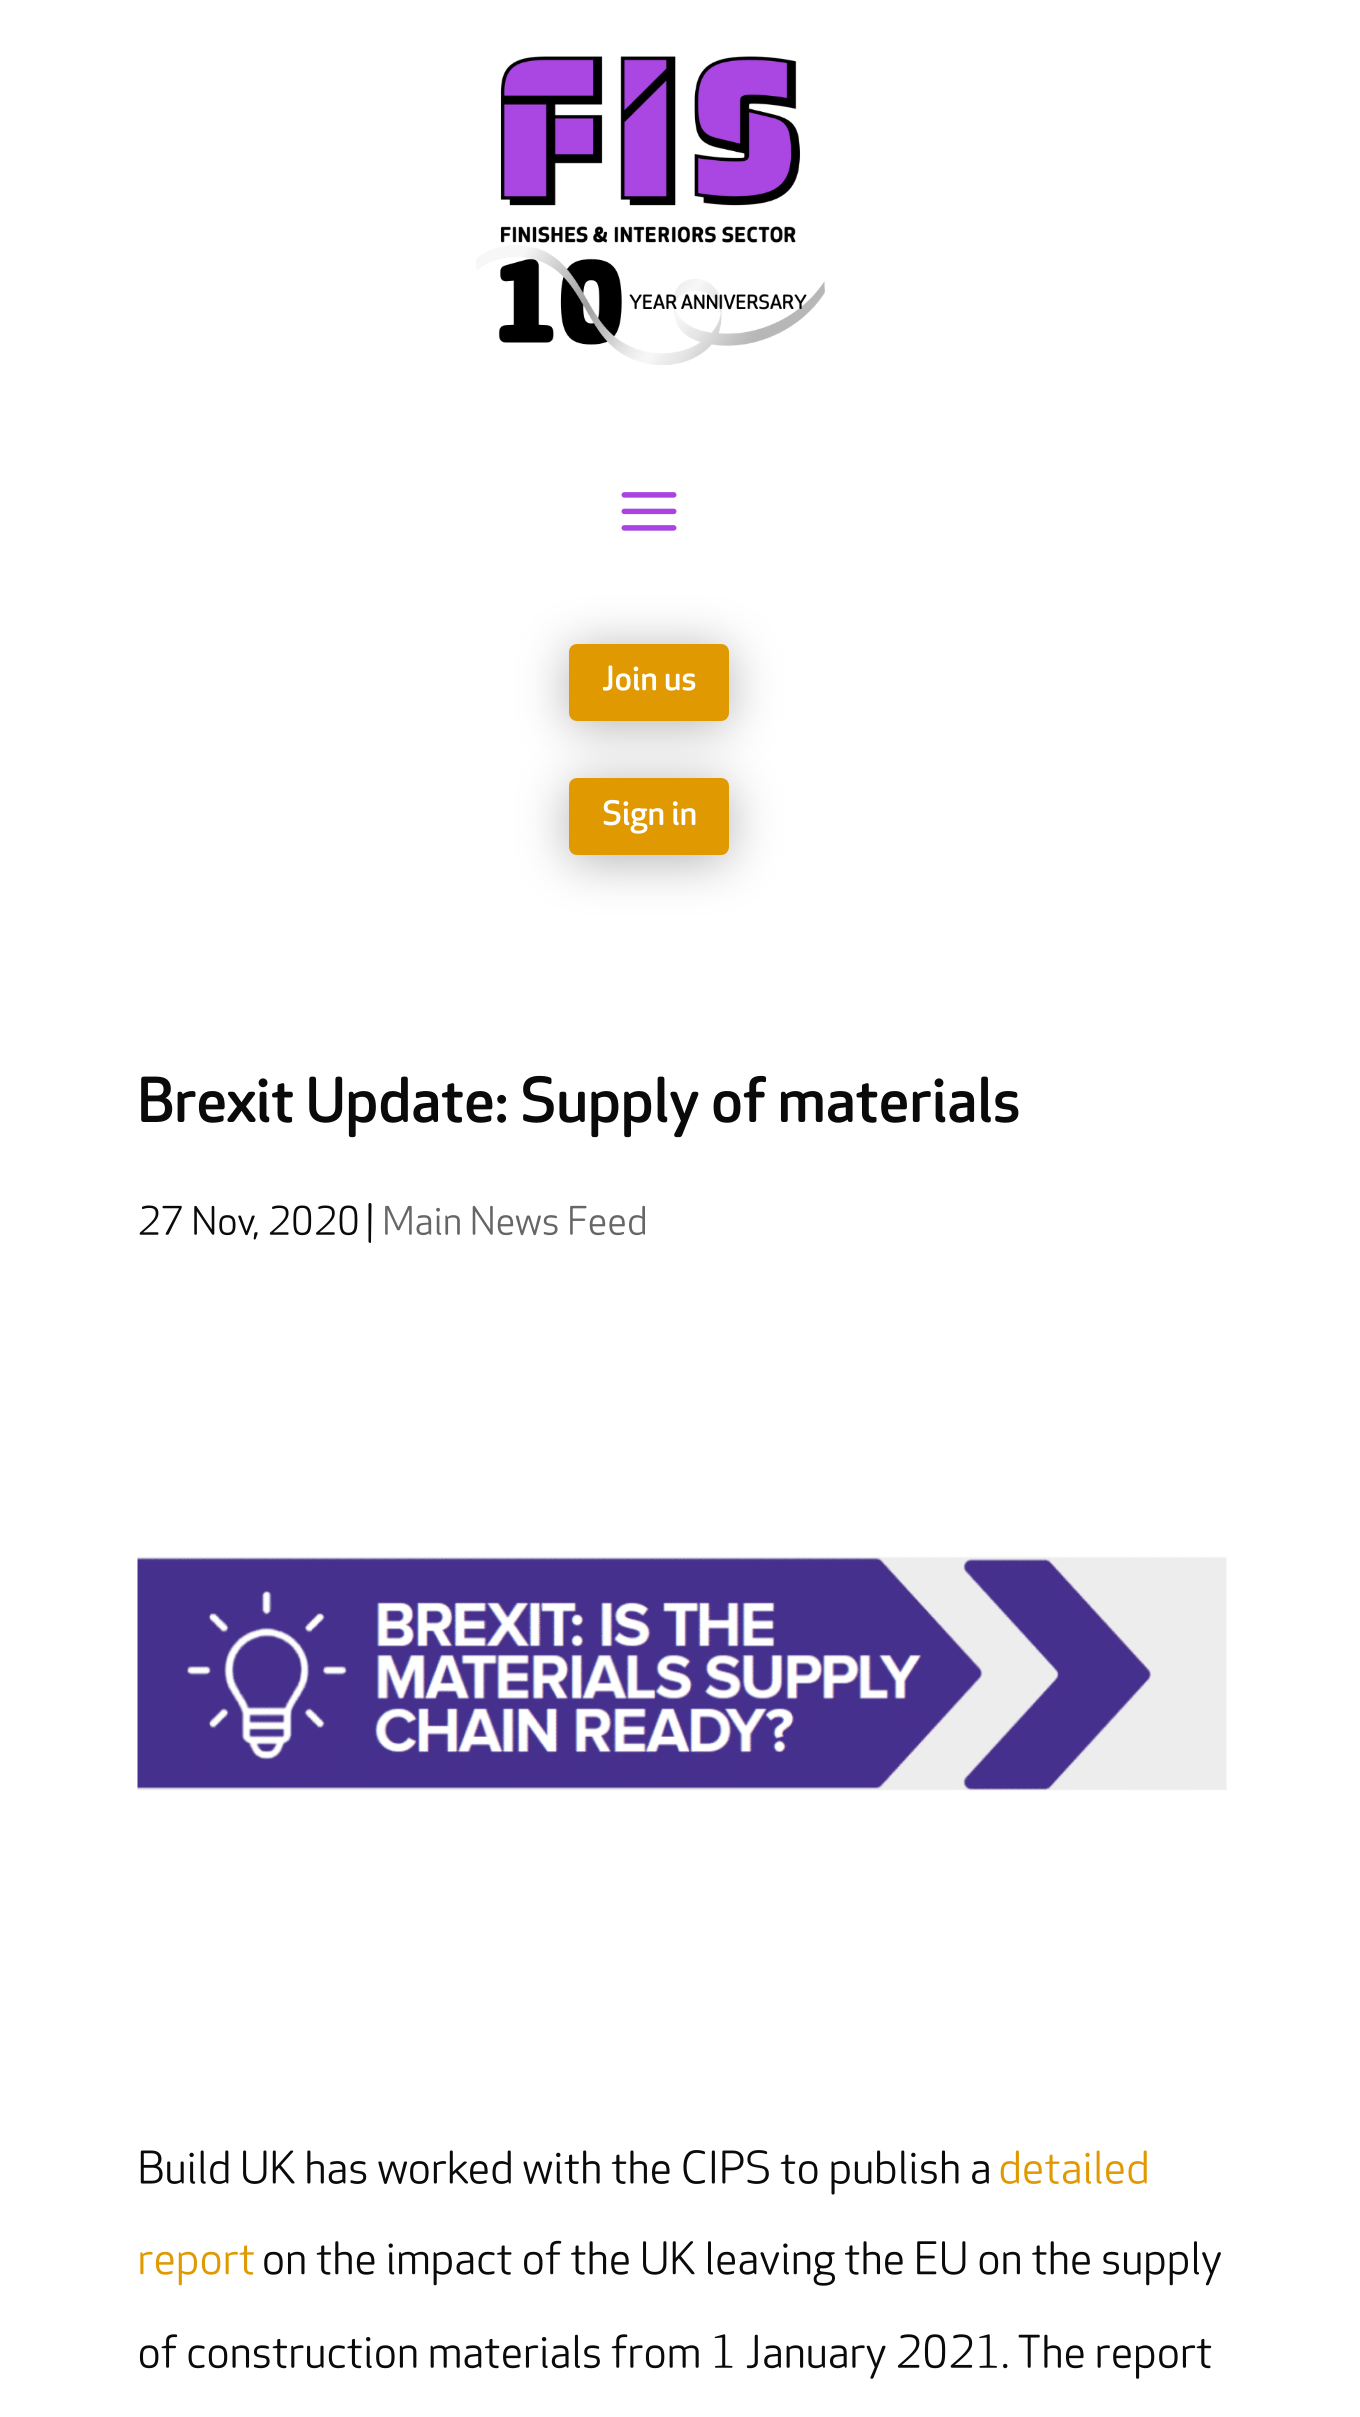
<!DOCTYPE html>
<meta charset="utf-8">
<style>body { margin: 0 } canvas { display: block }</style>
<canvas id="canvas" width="1360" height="2417"></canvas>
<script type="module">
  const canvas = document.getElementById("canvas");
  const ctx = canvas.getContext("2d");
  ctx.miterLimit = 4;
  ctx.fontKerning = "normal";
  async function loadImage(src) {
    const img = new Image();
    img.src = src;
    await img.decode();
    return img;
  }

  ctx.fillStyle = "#ffffff";
  ctx.fillRect(0, 0, 1360, 2417);
  ctx.drawImage(await loadImage("img1.png"), 476, 56, 349, 309);
  ctx.drawImage(await loadImage("img2.png"), 621, 492, 56, 39);
  ctx.fillStyle = "rgba(0, 0, 0, 0.3)";
  ctx.filter = "blur(25px)";
  ctx.beginPath();
  ctx.roundRect(569, 649, 160, 77, 8);
  ctx.fill();
  ctx.filter = "none";
  ctx.fillStyle = "#e09900";
  ctx.beginPath();
  ctx.roundRect(569, 644, 160, 77, 8);
  ctx.fill();
  ctx.drawImage(await loadImage("img3.png"), 602, 665, 94, 26);
  ctx.fillStyle = "rgba(0, 0, 0, 0.3)";
  ctx.filter = "blur(25px)";
  ctx.beginPath();
  ctx.roundRect(569, 784, 160, 77, 8);
  ctx.fill();
  ctx.filter = "none";
  ctx.fillStyle = "#e09900";
  ctx.beginPath();
  ctx.roundRect(569, 778, 160, 77, 8);
  ctx.fill();
  ctx.drawImage(await loadImage("img4.png"), 603, 799, 93, 35);
  ctx.drawImage(await loadImage("img5.png"), 141, 1075, 878, 63);
  ctx.drawImage(await loadImage("img6.png"), 139, 1205, 219, 35);
  ctx.fillStyle = "#0a0a0a";
  ctx.beginPath();
  ctx.moveTo(371.5, 1204.5);
  ctx.bezierCurveTo(371.5, 1203, 369, 1202.5, 368.5, 1204);
  ctx.lineTo(368.5, 1241.5);
  ctx.bezierCurveTo(368.5, 1243, 371, 1243.5, 371, 1242);
  ctx.closePath();
  ctx.fill();
  ctx.drawImage(await loadImage("img7.png"), 385, 1205, 260, 31);
  ctx.drawImage(await loadImage("img8.png"), 137, 1556, 1090, 235);
  ctx.drawImage(await loadImage("img9.png"), 140, 2150, 849, 45);
  ctx.drawImage(await loadImage("img10.png"), 1000, 2150, 147, 34);
  ctx.drawImage(await loadImage("img11.png"), 140, 2245, 114, 41);
  ctx.drawImage(await loadImage("img12.png"), 264, 2240, 957, 46);
  ctx.drawImage(await loadImage("img13.png"), 139, 2334, 1073, 45);
</script>
